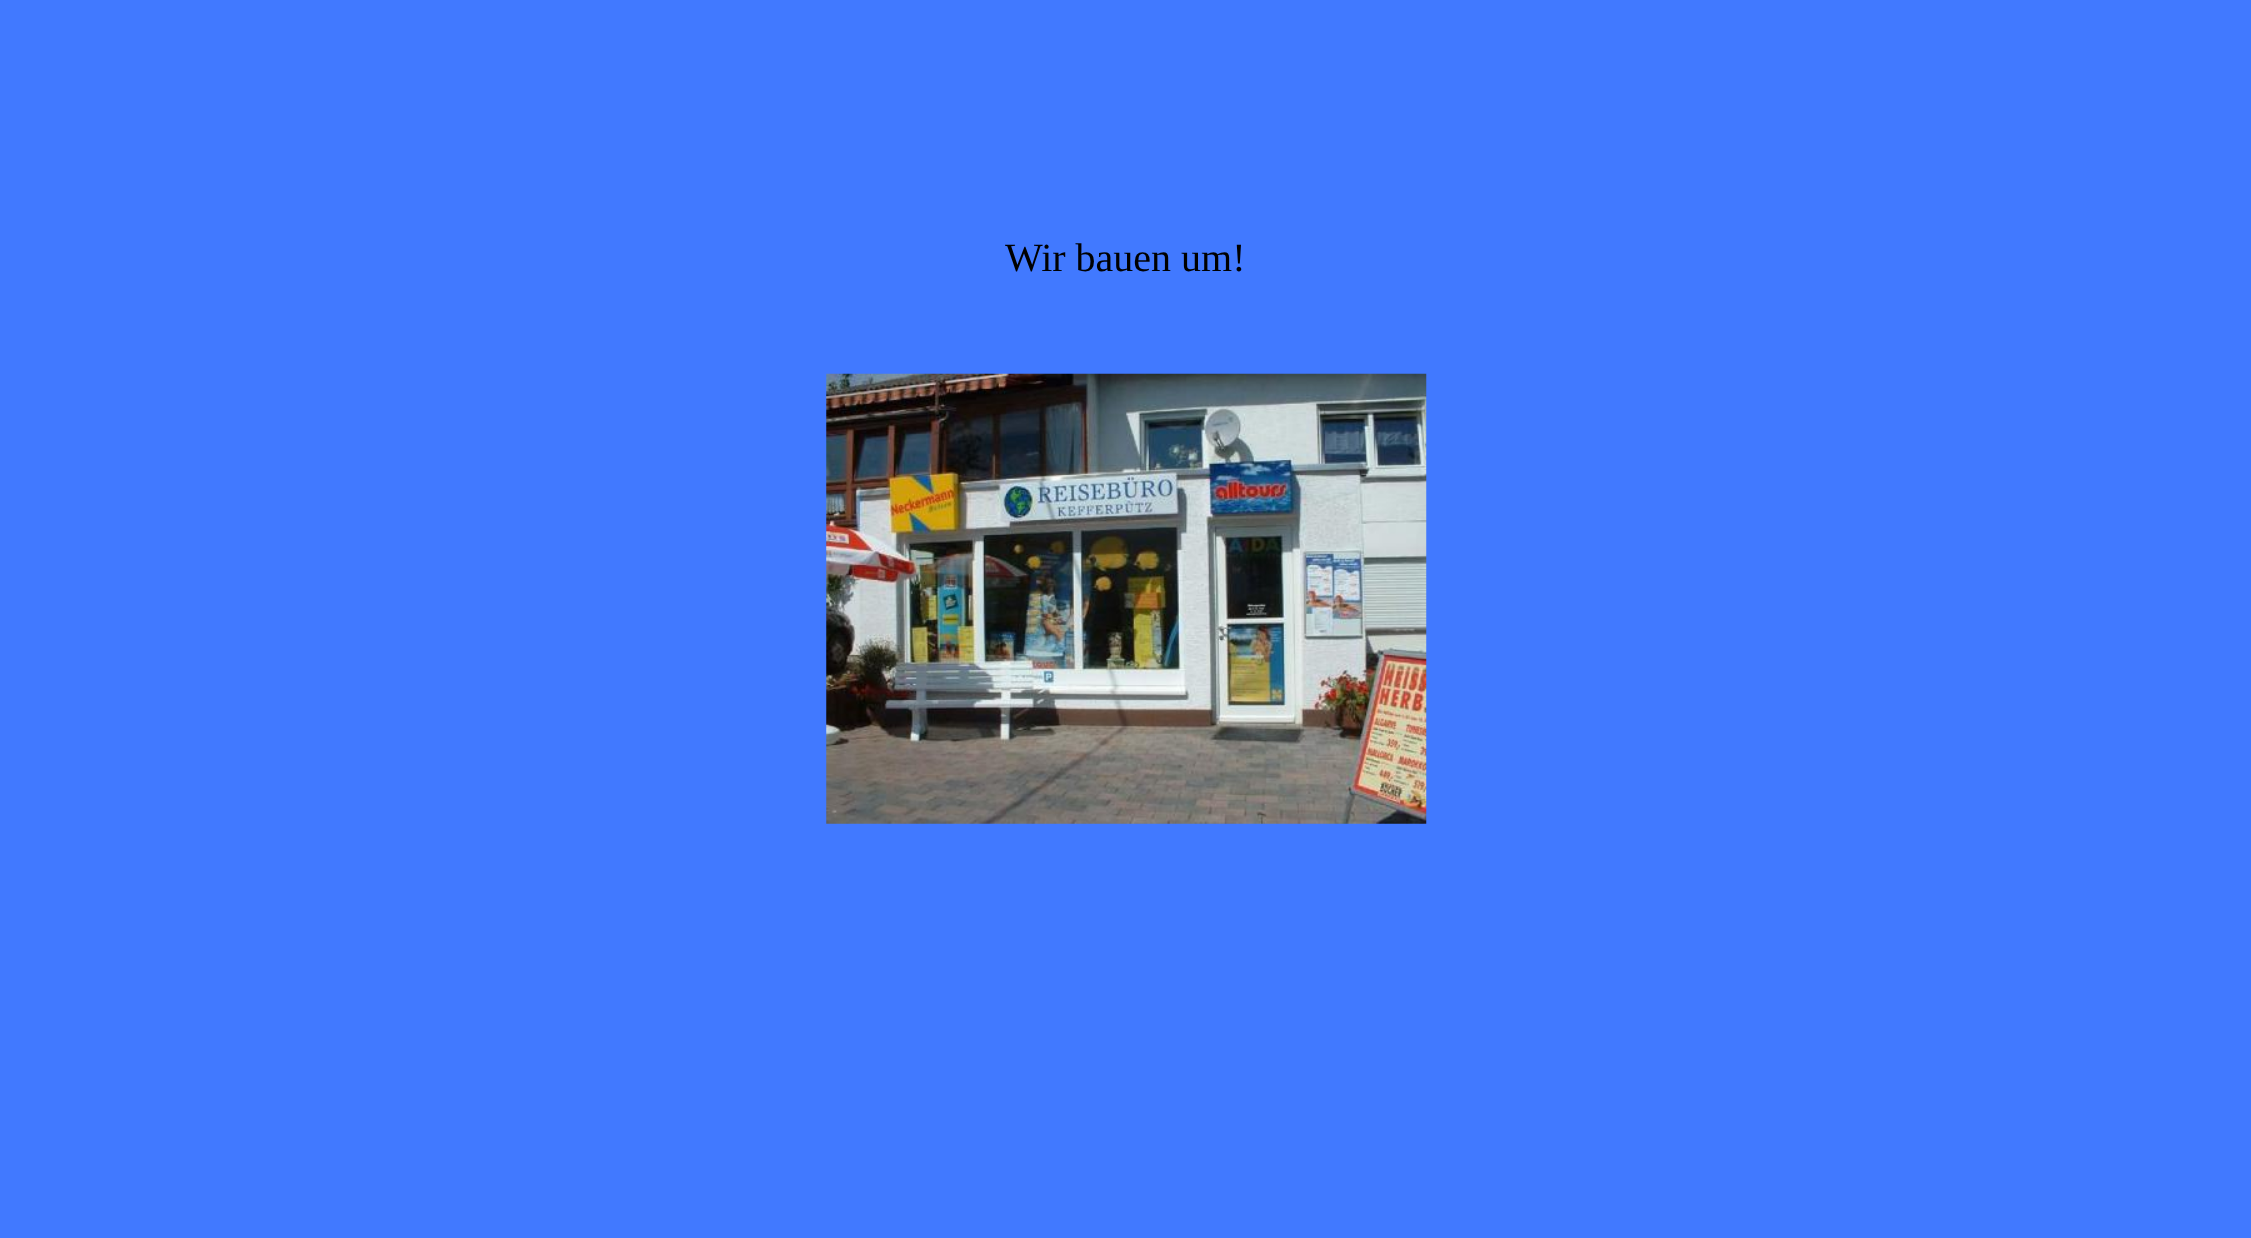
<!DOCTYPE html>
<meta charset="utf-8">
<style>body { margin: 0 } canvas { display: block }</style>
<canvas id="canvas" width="2251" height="1238"></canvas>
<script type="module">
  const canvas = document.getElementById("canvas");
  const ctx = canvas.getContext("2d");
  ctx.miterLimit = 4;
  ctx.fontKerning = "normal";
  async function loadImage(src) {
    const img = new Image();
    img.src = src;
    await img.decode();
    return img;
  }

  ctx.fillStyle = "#4179ff";
  ctx.fillRect(0, 0, 2251, 1238);
  ctx.font = "40px Liberation Serif";
  ctx.fillStyle = "#000000";
  ctx.fillText("Wir bauen um!", 1005, 271);
  ctx.drawImage(await loadImage("img1.png"), 826, 373, 601, 451);
</script>
